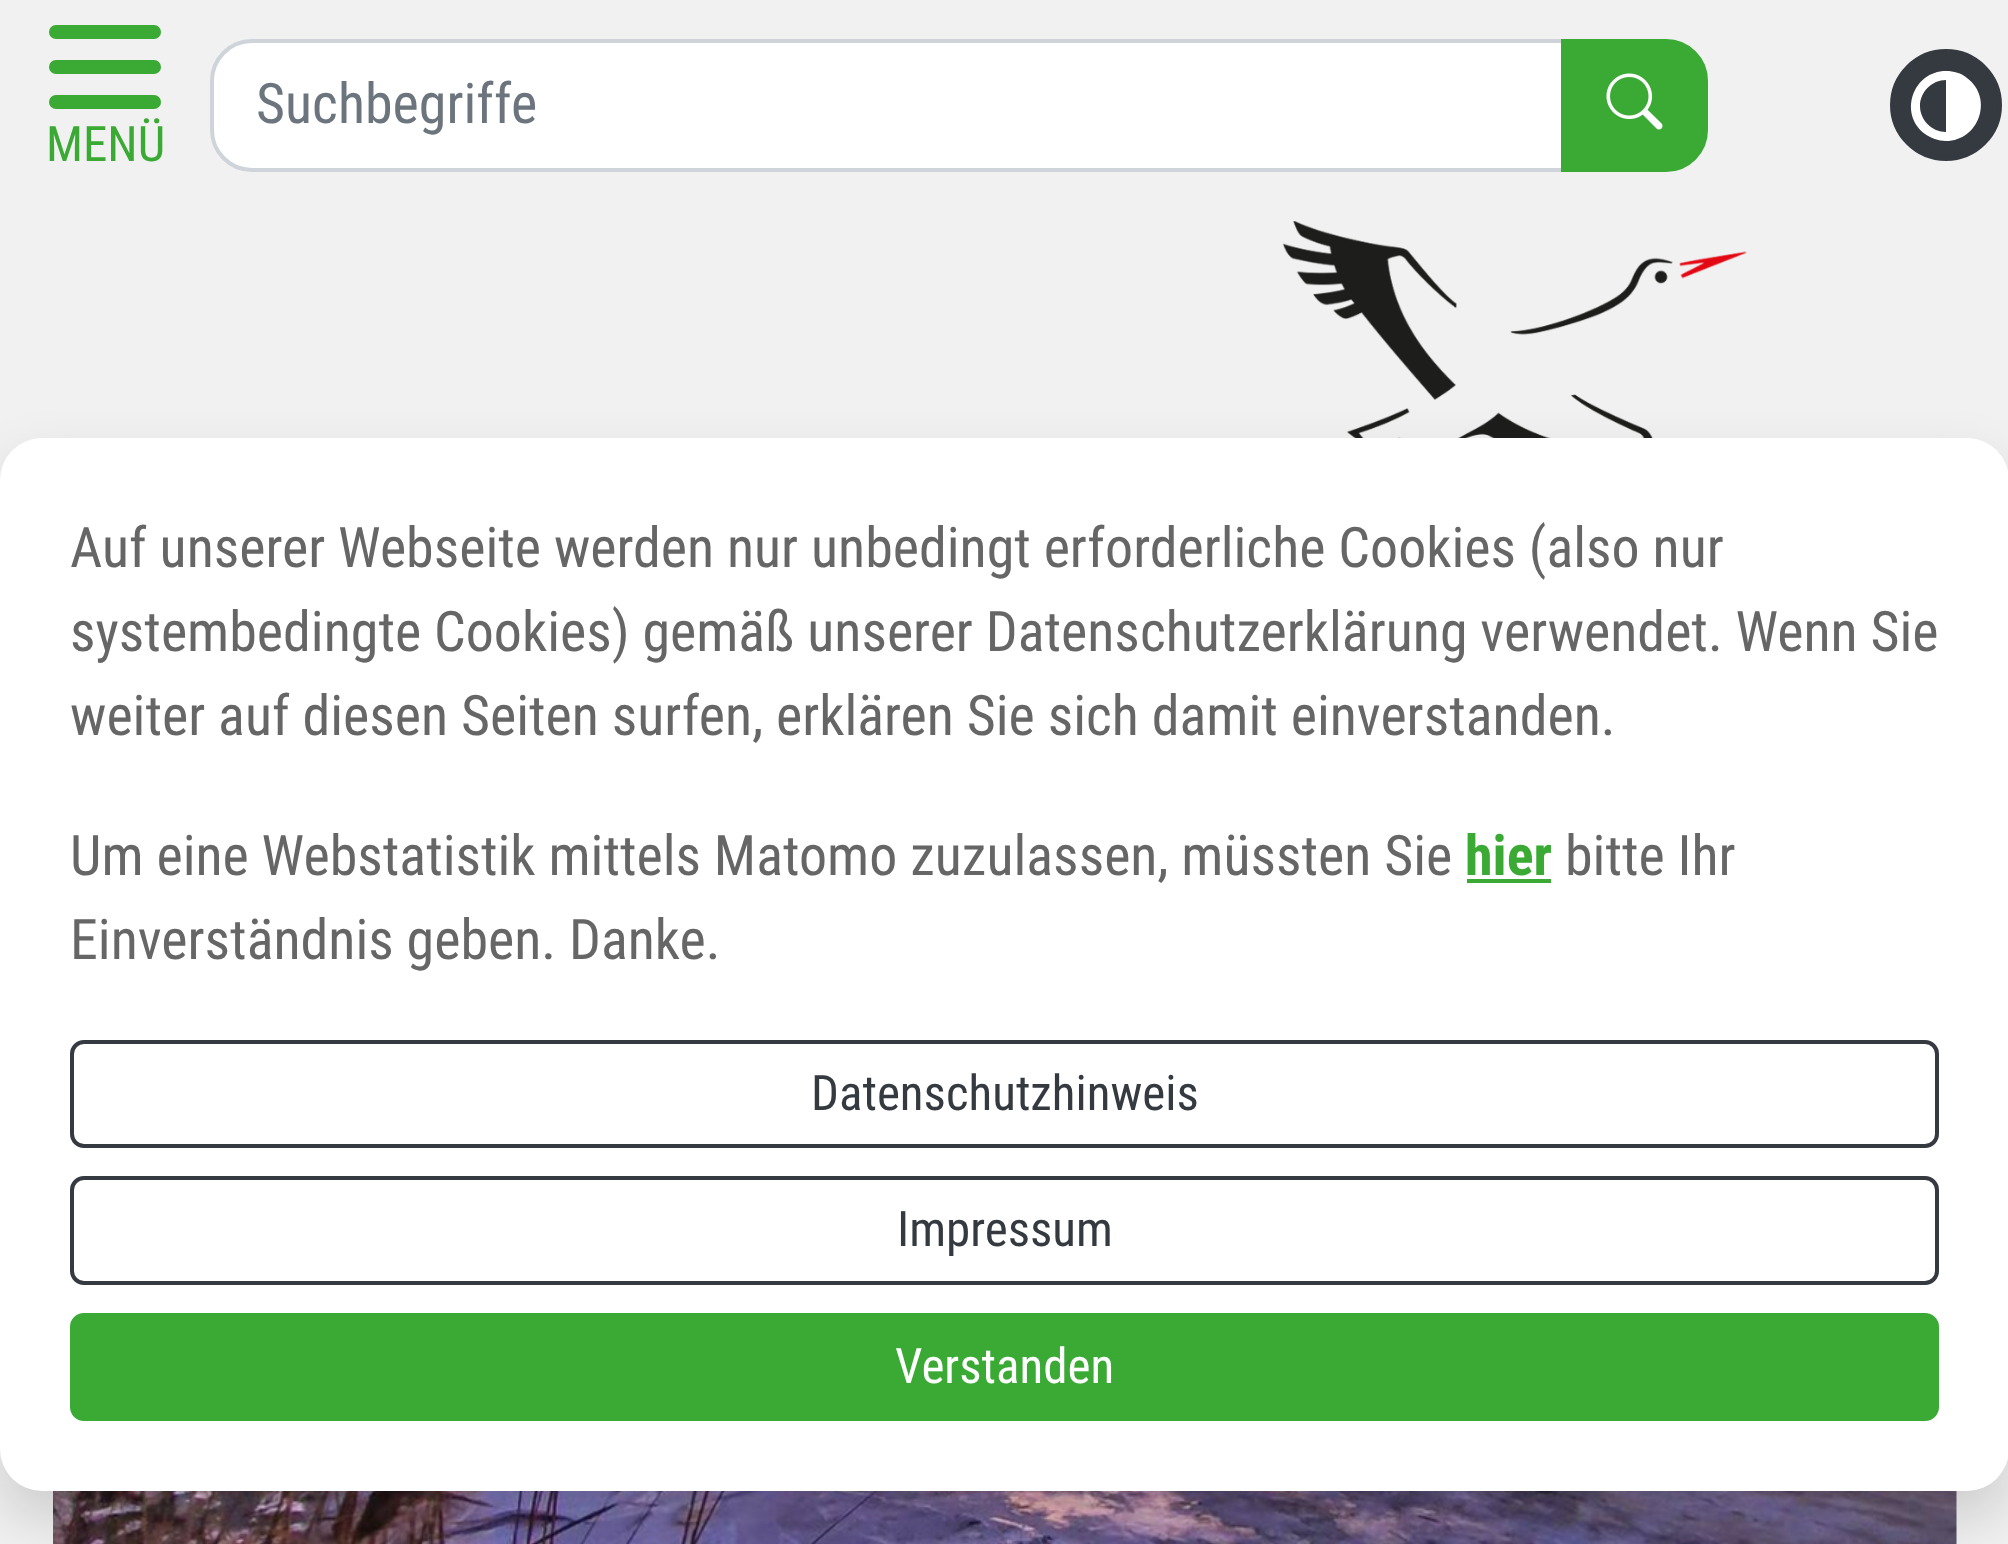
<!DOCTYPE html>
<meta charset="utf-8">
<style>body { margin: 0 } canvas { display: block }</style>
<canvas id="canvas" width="2008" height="1544"></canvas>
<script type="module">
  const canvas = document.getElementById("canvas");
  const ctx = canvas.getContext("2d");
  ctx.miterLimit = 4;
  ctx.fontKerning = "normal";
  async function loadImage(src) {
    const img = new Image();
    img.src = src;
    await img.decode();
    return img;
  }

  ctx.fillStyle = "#f1f1f1";
  ctx.fillRect(0, 0, 2008, 1544);
  ctx.fillStyle = "#ffffff";
  ctx.beginPath();
  ctx.roundRect(212, 41, 1351, 129, [40, 0, 0, 40]);
  ctx.fill();
  ctx.strokeStyle = "#ced4da";
  ctx.lineWidth = 4;
  ctx.stroke();
  ctx.font = "56px Roboto Condensed";
  ctx.fillStyle = "#6c757d";
  ctx.fillText("Suchbegriffe", 256, 123);
  ctx.fillStyle = "#3aaa35";
  ctx.beginPath();
  ctx.roundRect(1563, 41, 143, 129, [0, 40, 40, 0]);
  ctx.fill();
  ctx.strokeStyle = "#3aaa35";
  ctx.stroke();
  ctx.drawImage(await loadImage("img1.png"), 1606, 73, 57, 57);
  ctx.fillStyle = "#343a40";
  ctx.beginPath();
  ctx.arc(1946, 105, 54, 0, Math.PI * 2);
  ctx.fill();
  ctx.strokeStyle = "#343a40";
  ctx.stroke();
  ctx.fillStyle = "#ffffff";
  ctx.beginPath();
  ctx.moveTo(1946, 71);
  ctx.bezierCurveTo(1913, 71, 1898, 114, 1925, 134);
  ctx.bezierCurveTo(1931, 138, 1938, 141, 1946, 141);
  ctx.bezierCurveTo(1979, 141, 1994, 98, 1967, 78);
  ctx.bezierCurveTo(1961, 73, 1954, 71, 1946, 71);
  ctx.closePath();
  ctx.moveTo(1920, 106);
  ctx.bezierCurveTo(1920, 92, 1932, 80, 1946, 80);
  ctx.lineTo(1946, 132);
  ctx.bezierCurveTo(1932, 132, 1920, 120, 1920, 106);
  ctx.closePath();
  ctx.fill();
  ctx.fillStyle = "#3aaa35";
  ctx.beginPath();
  ctx.roundRect(49, 25, 112, 14, 7);
  ctx.fill();
  ctx.beginPath();
  ctx.roundRect(49, 60, 112, 14, 7);
  ctx.fill();
  ctx.beginPath();
  ctx.roundRect(49, 95, 112, 14, 7);
  ctx.fill();
  ctx.font = "49px Roboto Condensed";
  ctx.fillText("MENÜ", 46, 161);
  ctx.drawImage(await loadImage("img2.png"), 1282, 221, 465, 217);
  ctx.drawImage(await loadImage("img3.png"), 53, 1491, 1904, 53);
  ctx.fillStyle = "rgba(0, 0, 0, 0.15)";
  ctx.filter = "blur(28px)";
  ctx.beginPath();
  ctx.roundRect(0, 466, 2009, 1053, 42);
  ctx.fill();
  ctx.filter = "none";
  ctx.fillStyle = "#ffffff";
  ctx.beginPath();
  ctx.roundRect(0, 438, 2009, 1053, 42);
  ctx.fill();
  ctx.font = "56px Roboto Condensed";
  ctx.fillStyle = "#666666";
  ctx.fillText("Auf unserer Webseite werden nur unbedingt erforderliche Cookies (also nur", 70, 567);
  ctx.fillText("systembedingte Cookies) gemäß unserer Datenschutzerklärung verwendet. Wenn Sie", 70, 651);
  ctx.fillText("weiter auf diesen Seiten surfen, erklären Sie sich damit einverstanden.", 70, 735);
  ctx.fillText("Um eine Webstatistik mittels Matomo zuzulassen, müssten Sie", 70, 875);
  ctx.font = "bold 56px Roboto Condensed";
  ctx.fillStyle = "#3aaa35";
  ctx.fillText("hier", 1465, 875);
  ctx.fillRect(1467, 879, 84, 4);
  ctx.font = "56px Roboto Condensed";
  ctx.fillStyle = "#666666";
  ctx.fillText("bitte Ihr", 1565, 875);
  ctx.fillText("Einverständnis geben. Danke.", 70, 959);
  ctx.beginPath();
  ctx.roundRect(72, 1042, 1865, 104, 12);
  ctx.stroke();
  ctx.font = "49px Roboto Condensed";
  ctx.fillStyle = "#343a40";
  ctx.fillText("Datenschutzhinweis", 811, 1110);
  ctx.beginPath();
  ctx.roundRect(72, 1178, 1865, 105, 12);
  ctx.stroke();
  ctx.fillText("Impressum", 897, 1246);
  ctx.fillStyle = "#3aaa35";
  ctx.beginPath();
  ctx.roundRect(72, 1315, 1865, 104, 12);
  ctx.fill();
  ctx.strokeStyle = "#3aaa35";
  ctx.stroke();
  ctx.fillStyle = "#ffffff";
  ctx.fillText("Verstanden", 895, 1383);
</script>
